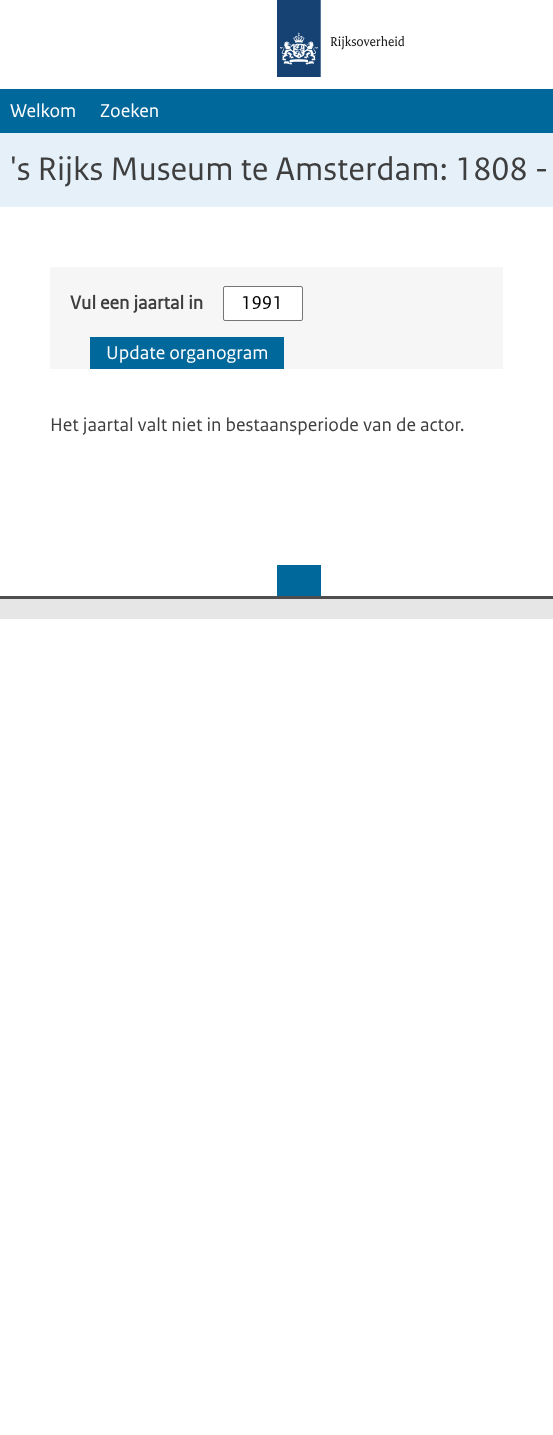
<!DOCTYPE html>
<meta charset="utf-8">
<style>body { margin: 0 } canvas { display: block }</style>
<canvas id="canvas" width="553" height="1435"></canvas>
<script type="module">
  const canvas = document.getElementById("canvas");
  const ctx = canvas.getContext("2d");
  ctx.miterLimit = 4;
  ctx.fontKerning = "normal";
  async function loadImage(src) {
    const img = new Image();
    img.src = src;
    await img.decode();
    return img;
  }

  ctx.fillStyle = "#ffffff";
  ctx.fillRect(0, 0, 553, 1435);
  ctx.drawImage(await loadImage("img1.png"), 277, 0, 127, 77);
  ctx.fillStyle = "#01689b";
  ctx.fillRect(0, 89, 553, 44);
  ctx.font = "19.6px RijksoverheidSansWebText";
  ctx.fillStyle = "#ffffff";
  ctx.fillText("Welkom", 10, 117);
  ctx.fillText("Zoeken", 100, 117);
  ctx.fillStyle = "#e5f0f9";
  ctx.fillRect(0, 133, 553, 74);
  ctx.font = "34.25px RijksoverheidSansWebText";
  ctx.fillStyle = "#3e3e3e";
  ctx.fillText("'s Rijks Museum te Amsterdam: 1808 -", 10, 180);
  ctx.fillStyle = "#f6f6f6";
  ctx.fillRect(50, 267, 453, 102);
  ctx.font = "bold 19.6px RijksoverheidSansWebText";
  ctx.fillStyle = "#3e3e3e";
  ctx.fillText("Vul een jaartal in", 70, 309);
  ctx.fillStyle = "#ffffff";
  ctx.beginPath();
  ctx.roundRect(223.5, 286.5, 79, 34, 1.5);
  ctx.fill();
  ctx.strokeStyle = "#767676";
  ctx.stroke();
  ctx.font = "19.6px RijksoverheidSansWebText";
  ctx.fillStyle = "#000000";
  ctx.fillText("1991", 241, 309);
  ctx.fillStyle = "#01689b";
  ctx.fillRect(90, 337, 194, 32);
  ctx.fillStyle = "#ffffff";
  ctx.fillText("Update organogram", 106, 359);
  ctx.fillStyle = "#3e3e3e";
  ctx.fillText("Het jaartal valt niet in bestaansperiode van de actor.", 50, 431);
  ctx.fillStyle = "#01689b";
  ctx.fillRect(277, 565, 44, 31);
  ctx.fillStyle = "#e6e6e6";
  ctx.fillRect(0, 599, 553, 20);
  ctx.fillStyle = "#4e4e4e";
  ctx.fillRect(0, 596, 553, 3);
</script>
